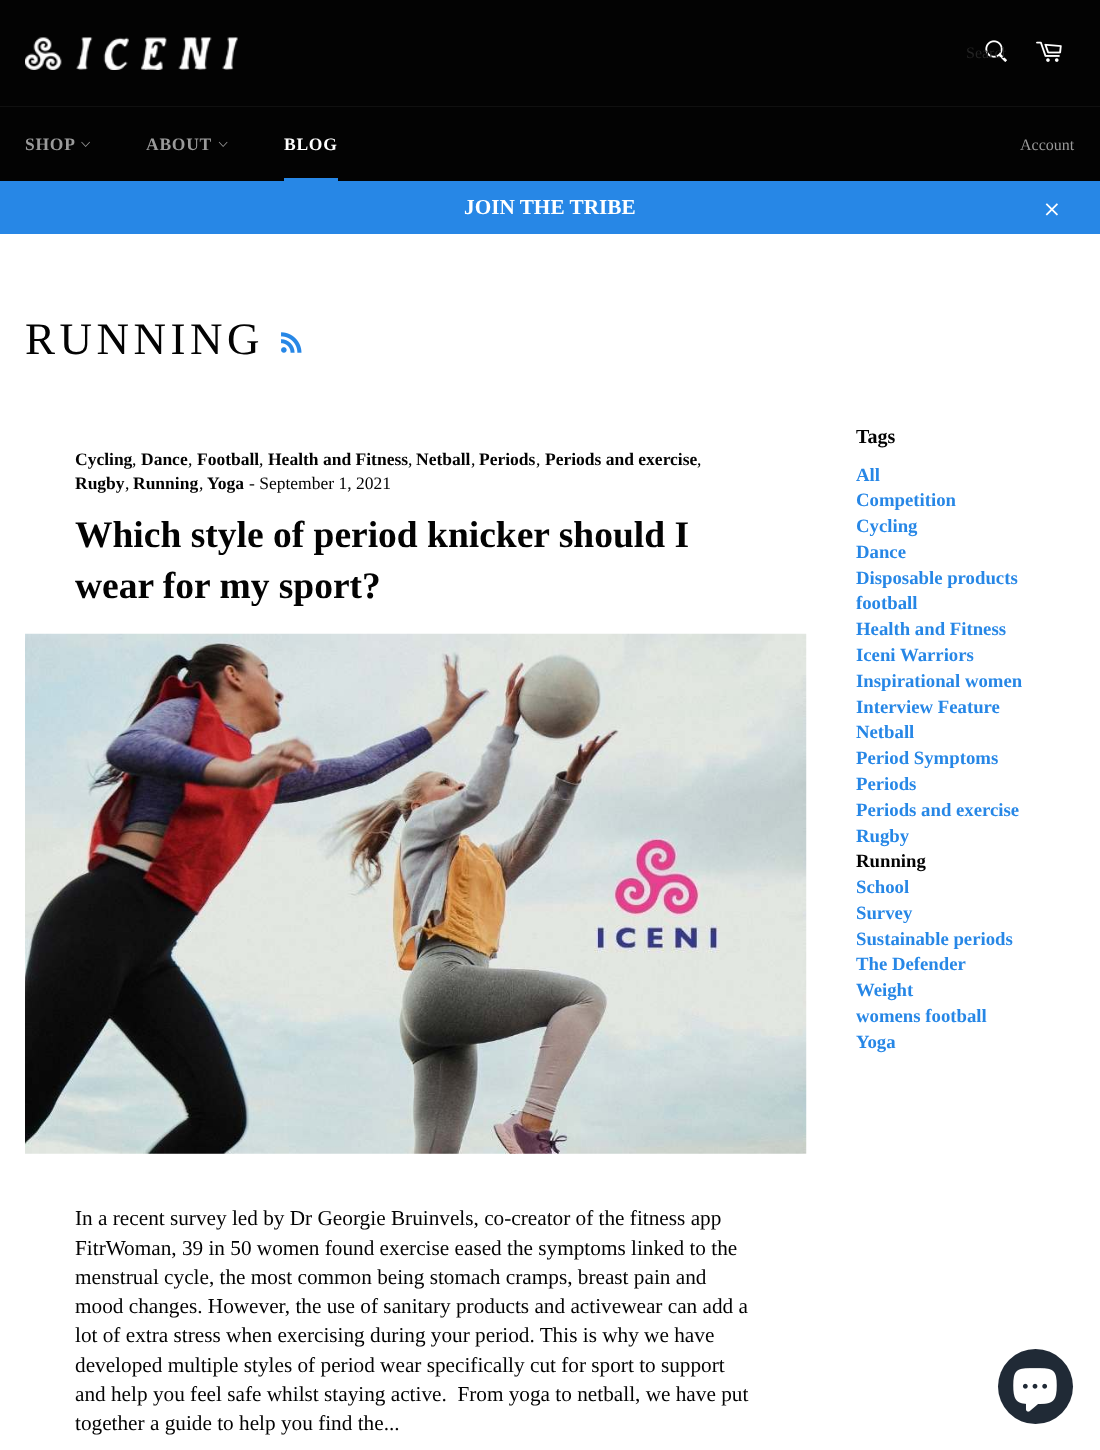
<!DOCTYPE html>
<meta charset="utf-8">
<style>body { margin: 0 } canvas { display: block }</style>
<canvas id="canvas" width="1100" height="1450"></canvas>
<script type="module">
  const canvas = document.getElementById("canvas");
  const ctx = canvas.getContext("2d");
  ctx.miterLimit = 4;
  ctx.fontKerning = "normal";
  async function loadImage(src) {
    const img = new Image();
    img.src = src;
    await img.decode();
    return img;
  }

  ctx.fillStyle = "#ffffff";
  ctx.fillRect(0, 0, 1100, 1450);
  ctx.fillStyle = "#030303";
  ctx.fillRect(0, 0, 1100, 106);
  ctx.drawImage(await loadImage("img1.png"), 25, 37, 213, 33);
  ctx.drawImage(await loadImage("img2.png"), 985, 40, 22, 22);
  ctx.save();
  ctx.beginPath();
  ctx.rect(966, 44, 40, 20);
  ctx.clip();
  ctx.font = "16px Liberation Serif";
  ctx.fillStyle = "#232323";
  ctx.fillText("Search", 966, 58);
  ctx.restore();
  ctx.drawImage(await loadImage("img3.png"), 1036, 41, 26, 21);
  ctx.fillRect(0, 107, 1100, 74);
  ctx.fillStyle = "#101010";
  ctx.fillRect(0, 106, 1100, 1);
  ctx.letterSpacing = "0.75px";
  ctx.font = "bold 17.5px Liberation Serif";
  ctx.fillStyle = "#9a9a9a";
  ctx.fillText("SHOP", 25, 150);
  ctx.drawImage(await loadImage("img4.png"), 81, 141, 9, 6);
  ctx.fillText("ABOUT", 146, 150);
  ctx.drawImage(await loadImage("img5.png"), 218, 141, 10, 6);
  ctx.fillStyle = "#ffffff";
  ctx.fillText("BLOG", 284, 150);
  ctx.fillStyle = "#2787e6";
  ctx.fillRect(284, 178, 54, 3);
  ctx.letterSpacing = "0px";
  ctx.font = "16px Liberation Serif";
  ctx.fillStyle = "#9a9a9a";
  ctx.fillText("Account", 1020, 150);
  ctx.fillStyle = "#2787e6";
  ctx.fillRect(0, 181, 1100, 53);
  ctx.font = "bold 21.25px Liberation Serif";
  ctx.fillStyle = "#ffffff";
  ctx.fillText("JOIN THE TRIBE", 464, 214);
  ctx.drawImage(await loadImage("img6.png"), 1045, 203, 13, 13);
  ctx.letterSpacing = "4.5px";
  ctx.font = "45px Liberation Serif";
  ctx.fillStyle = "#030303";
  ctx.fillText("RUNNING", 25, 354);
  ctx.drawImage(await loadImage("img7.png"), 281, 332, 21, 21);
  ctx.letterSpacing = "0px";
  ctx.font = "bold 17.5px Liberation Serif";
  ctx.fillText("Cycling", 75, 465);
  ctx.font = "17.5px Liberation Serif";
  ctx.fillText(",", 132, 465);
  ctx.font = "bold 17.5px Liberation Serif";
  ctx.fillText("Dance", 141, 465);
  ctx.font = "17.5px Liberation Serif";
  ctx.fillText(",", 188, 465);
  ctx.font = "bold 17.5px Liberation Serif";
  ctx.fillText("Football", 197, 465);
  ctx.font = "17.5px Liberation Serif";
  ctx.fillText(",", 259, 465);
  ctx.font = "bold 17.5px Liberation Serif";
  ctx.fillText("Health and Fitness", 268, 465);
  ctx.font = "17.5px Liberation Serif";
  ctx.fillText(",", 408, 465);
  ctx.font = "bold 17.5px Liberation Serif";
  ctx.fillText("Netball", 416, 465);
  ctx.font = "17.5px Liberation Serif";
  ctx.fillText(",", 471, 465);
  ctx.font = "bold 17.5px Liberation Serif";
  ctx.fillText("Periods", 479, 465);
  ctx.font = "17.5px Liberation Serif";
  ctx.fillText(",", 536, 465);
  ctx.font = "bold 17.5px Liberation Serif";
  ctx.fillText("Periods and exercise", 545, 465);
  ctx.font = "17.5px Liberation Serif";
  ctx.fillText(",", 697, 465);
  ctx.font = "bold 17.5px Liberation Serif";
  ctx.fillText("Rugby", 75, 489);
  ctx.font = "17.5px Liberation Serif";
  ctx.fillText(",", 125, 489);
  ctx.font = "bold 17.5px Liberation Serif";
  ctx.fillText("Running", 133, 489);
  ctx.font = "17.5px Liberation Serif";
  ctx.fillText(",", 199, 489);
  ctx.font = "bold 17.5px Liberation Serif";
  ctx.fillText("Yoga", 207, 489);
  ctx.font = "17.5px Liberation Serif";
  ctx.fillText("- September 1, 2021", 249, 489);
  ctx.font = "bold 37.5px Liberation Serif";
  ctx.fillText("Which style of period knicker should I", 75, 547);
  ctx.fillText("wear for my sport?", 75, 598);
  ctx.drawImage(await loadImage("img8.png"), 25, 633, 782, 521);
  ctx.font = "21.25px Liberation Serif";
  ctx.fillText("In a recent survey led by Dr Georgie Bruinvels, co-creator of the fitness app", 75, 1225);
  ctx.fillText("FitrWoman, 39 in 50 women found exercise eased the symptoms linked to the", 75, 1255);
  ctx.fillText("menstrual cycle, the most common being stomach cramps, breast pain and", 75, 1284);
  ctx.fillText("mood changes. However, the use of sanitary products and activewear can add a", 75, 1313);
  ctx.fillText("lot of extra stress when exercising during your period. This is why we have", 75, 1342);
  ctx.fillText("developed multiple styles of period wear specifically cut for sport to support", 75, 1372);
  ctx.fillText("and help you feel safe whilst staying active.  From yoga to netball, we have put", 75, 1401);
  ctx.fillText("together a guide to help you find the...", 75, 1430);
  ctx.font = "bold 20px Liberation Serif";
  ctx.fillText("Tags", 856, 443);
  ctx.font = "bold 18.75px Liberation Serif";
  ctx.fillStyle = "#2787e6";
  ctx.fillText("All", 856, 481);
  ctx.fillText("Competition", 856, 506);
  ctx.fillText("Cycling", 856, 532);
  ctx.fillText("Dance", 856, 558);
  ctx.fillText("Disposable products", 856, 584);
  ctx.fillText("football", 856, 609);
  ctx.fillText("Health and Fitness", 856, 635);
  ctx.fillText("Iceni Warriors", 856, 661);
  ctx.fillText("Inspirational women", 856, 687);
  ctx.fillText("Interview Feature", 856, 713);
  ctx.fillText("Netball", 856, 738);
  ctx.fillText("Period Symptoms", 856, 764);
  ctx.fillText("Periods", 856, 790);
  ctx.fillText("Periods and exercise", 856, 816);
  ctx.fillText("Rugby", 856, 842);
  ctx.fillStyle = "#030303";
  ctx.fillText("Running", 856, 867);
  ctx.fillStyle = "#2787e6";
  ctx.fillText("School", 856, 893);
  ctx.fillText("Survey", 856, 919);
  ctx.fillText("Sustainable periods", 856, 945);
  ctx.fillText("The Defender", 856, 970);
  ctx.fillText("Weight", 856, 996);
  ctx.fillText("womens football", 856, 1022);
  ctx.fillText("Yoga", 856, 1048);
  ctx.fillStyle = "#202a36";
  ctx.beginPath();
  ctx.arc(1035.5, 1386.5, 37.5, 0, Math.PI * 2);
  ctx.fill();
  ctx.drawImage(await loadImage("img9.png"), 1013, 1368, 44, 44);
</script>
